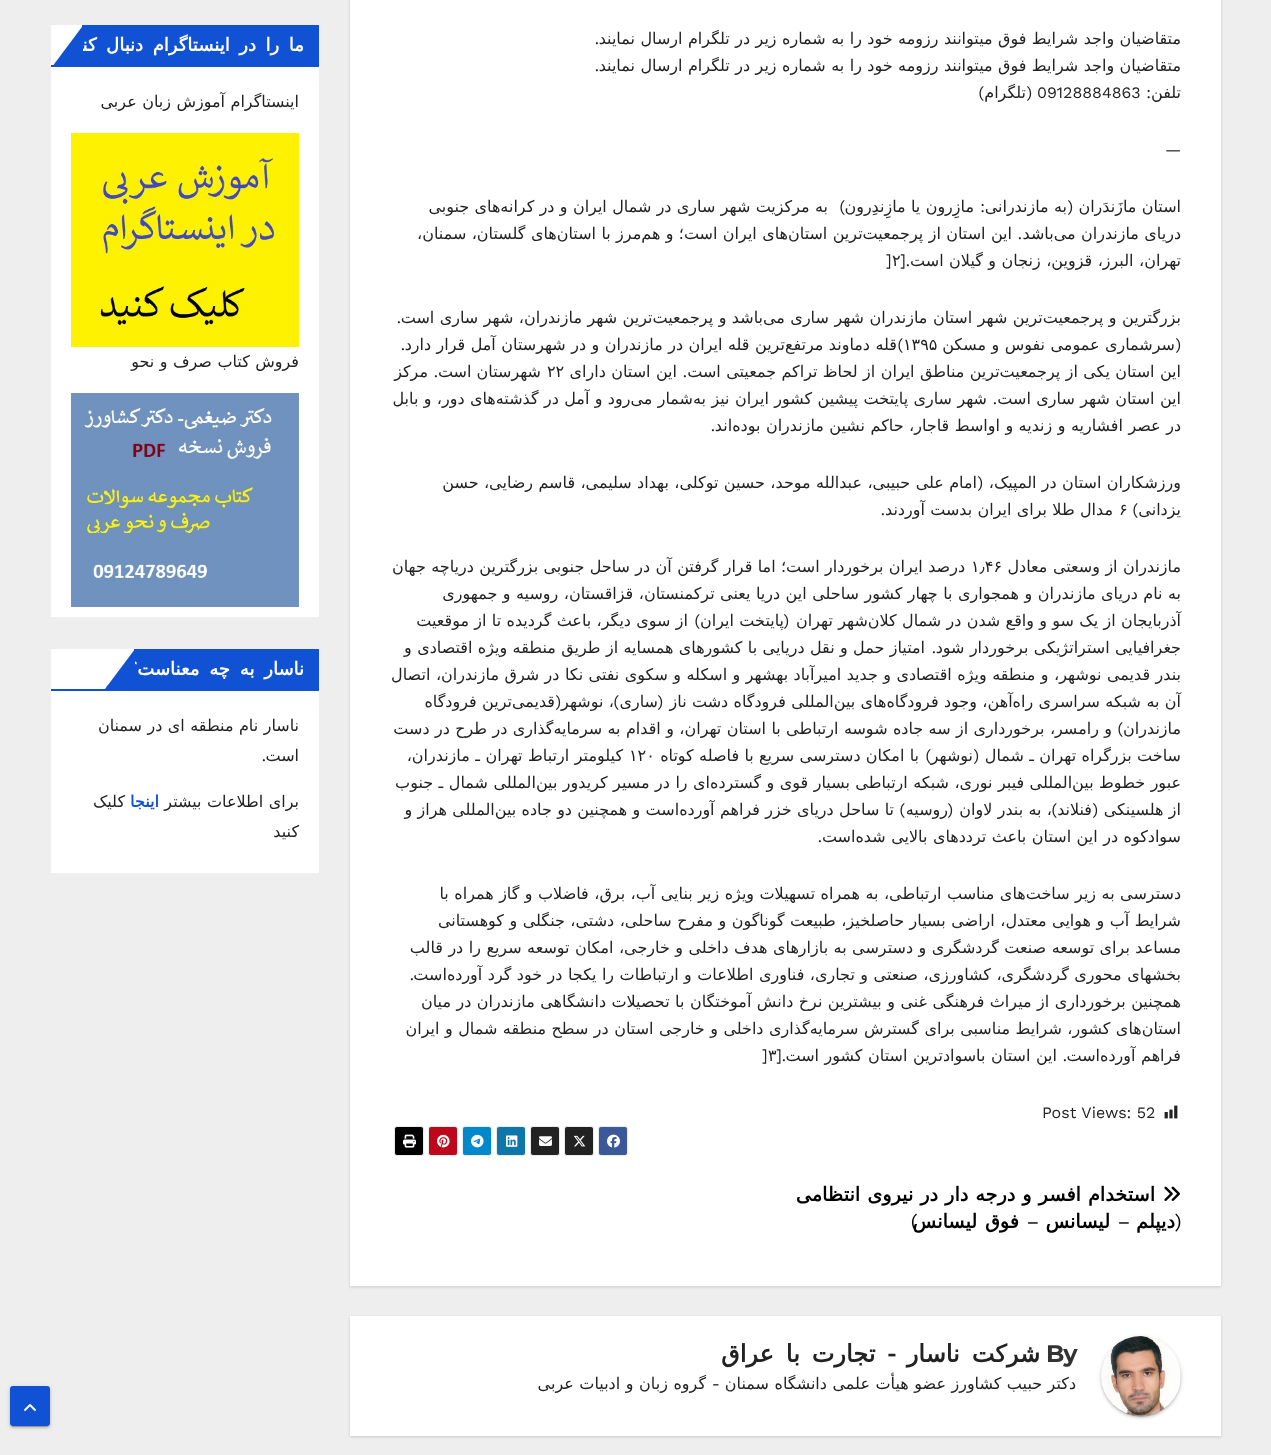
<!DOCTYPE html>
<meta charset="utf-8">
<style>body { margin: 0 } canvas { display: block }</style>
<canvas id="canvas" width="1271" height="1455"></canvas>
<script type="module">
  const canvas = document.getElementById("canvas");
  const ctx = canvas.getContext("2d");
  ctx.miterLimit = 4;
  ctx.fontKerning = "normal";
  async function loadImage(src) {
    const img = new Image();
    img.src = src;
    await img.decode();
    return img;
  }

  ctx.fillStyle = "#eeeeee";
  ctx.fillRect(0, 0, 1271, 1455);
  ctx.fillStyle = "rgba(0, 0, 0, 0.15)";
  ctx.filter = "blur(1.5px)";
  ctx.beginPath();
  ctx.rect(350, -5, 871, 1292);
  ctx.fill();
  ctx.filter = "none";
  ctx.fillStyle = "#ffffff";
  ctx.fillRect(350, 0, 871, 1286);
  ctx.wordSpacing = "0.4px";
  ctx.direction = "rtl";
  ctx.font = "16px DejaVu Sans";
  ctx.fillStyle = "#222222";
  ctx.fillText("متقاضیان واجد شرایط فوق میتوانند رزومه خود را به شماره زیر در تلگرام ارسال نمایند", 1181, 44);
  ctx.wordSpacing = "0px";
  ctx.font = "16px Work Sans";
  ctx.fillText(".", 599, 44);
  ctx.wordSpacing = "0.4px";
  ctx.font = "16px DejaVu Sans";
  ctx.fillText("متقاضیان واجد شرایط فوق میتوانند رزومه خود را به شماره زیر در تلگرام ارسال نمایند", 1181, 71);
  ctx.wordSpacing = "0px";
  ctx.font = "16px Work Sans";
  ctx.fillText(".", 599, 71);
  ctx.font = "16px DejaVu Sans";
  ctx.fillText("تلفن", 1181, 98);
  ctx.font = "16px Work Sans";
  ctx.fillText(":", 1151, 98);
  ctx.direction = "ltr";
  ctx.fillText("09128884863", 1037, 98);
  ctx.direction = "rtl";
  ctx.fillText("(", 1032, 98);
  ctx.font = "16px DejaVu Sans";
  ctx.fillText("تلگرام", 1026, 98);
  ctx.font = "16px Work Sans";
  ctx.fillText(")", 984, 98);
  ctx.direction = "ltr";
  ctx.fillText("—", 1165, 155);
  ctx.wordSpacing = "0.25px";
  ctx.direction = "rtl";
  ctx.font = "16px DejaVu Sans";
  ctx.fillText("استان مازَندَران", 1181, 212);
  ctx.wordSpacing = "0px";
  ctx.font = "16px Work Sans";
  ctx.fillText("(", 1073, 212);
  ctx.wordSpacing = "0.25px";
  ctx.font = "16px DejaVu Sans";
  ctx.fillText("به مازندرانی", 1067, 212);
  ctx.wordSpacing = "0px";
  ctx.font = "16px Work Sans";
  ctx.fillText(":", 985, 212);
  ctx.wordSpacing = "0.25px";
  ctx.font = "16px DejaVu Sans";
  ctx.fillText("مازِرون یا مازِندِرون", 974, 212);
  ctx.wordSpacing = "0px";
  ctx.font = "16px Work Sans";
  ctx.fillText(")", 845, 212);
  ctx.wordSpacing = "0.25px";
  ctx.font = "16px DejaVu Sans";
  ctx.fillText("به مرکزیت شهر ساری در شمال ایران و در کرانه‌های جنوبی", 828, 212);
  ctx.wordSpacing = "0.3px";
  ctx.fillText("دریای مازندران می‌باشد", 1181, 239);
  ctx.wordSpacing = "0px";
  ctx.font = "16px Work Sans";
  ctx.fillText(".", 1022, 239);
  ctx.wordSpacing = "0.3px";
  ctx.font = "16px DejaVu Sans";
  ctx.fillText("این استان از پرجمعیت‌ترین استان‌های ایران است؛ و هم‌مرز با استان‌های گلستان، سمنان،", 1012, 239);
  ctx.wordSpacing = "0.4px";
  ctx.fillText("تهران، البرز، قزوین، زنجان و گیلان است", 1181, 266);
  ctx.wordSpacing = "0px";
  ctx.font = "16px Work Sans";
  ctx.fillText(".[", 910, 266);
  ctx.direction = "ltr";
  ctx.font = "16px DejaVu Sans";
  ctx.fillText("۲", 892, 266);
  ctx.font = "16px Work Sans";
  ctx.fillText("]", 886, 266);
  ctx.wordSpacing = "0.4px";
  ctx.direction = "rtl";
  ctx.font = "16px DejaVu Sans";
  ctx.fillText("بزرگترین و پرجمعیت‌ترین شهر استان مازندران شهر ساری می‌باشد و پرجمعیت‌ترین شهر مازندران، شهر ساری است", 1181, 323);
  ctx.wordSpacing = "0px";
  ctx.font = "16px Work Sans";
  ctx.fillText(".", 401, 323);
  ctx.fillText("(", 1181, 350);
  ctx.wordSpacing = "0.4px";
  ctx.font = "16px DejaVu Sans";
  ctx.fillText("سرشماری عمومی نفوس و مسکن", 1175, 350);
  ctx.wordSpacing = "0px";
  ctx.direction = "ltr";
  ctx.fillText("۱۳۹۵", 903, 350);
  ctx.direction = "rtl";
  ctx.font = "16px Work Sans";
  ctx.fillText(")", 903, 350);
  ctx.wordSpacing = "0.4px";
  ctx.font = "16px DejaVu Sans";
  ctx.fillText("قله دماوند مرتفع‌ترین قله ایران در مازندران و در شهرستان آمل قرار دارد", 897, 350);
  ctx.wordSpacing = "0px";
  ctx.font = "16px Work Sans";
  ctx.fillText(".", 405, 350);
  ctx.wordSpacing = "0.3px";
  ctx.font = "16px DejaVu Sans";
  ctx.fillText("این استان یکی از پرجمعیت‌ترین مناطق ایران از لحاظ تراکم جمعیتی است", 1181, 377);
  ctx.wordSpacing = "0px";
  ctx.font = "16px Work Sans";
  ctx.fillText(".", 687, 377);
  ctx.wordSpacing = "0.3px";
  ctx.font = "16px DejaVu Sans";
  ctx.fillText("این استان دارای", 677, 377);
  ctx.wordSpacing = "0px";
  ctx.direction = "ltr";
  ctx.fillText("۲۲", 547, 377);
  ctx.direction = "rtl";
  ctx.fillText("شهرستان است", 541, 377);
  ctx.font = "16px Work Sans";
  ctx.fillText(".", 438, 377);
  ctx.font = "16px DejaVu Sans";
  ctx.fillText("مرکز", 428, 377);
  ctx.wordSpacing = "0.3px";
  ctx.fillText("این استان شهر ساری است", 1181, 404);
  ctx.wordSpacing = "0px";
  ctx.font = "16px Work Sans";
  ctx.fillText(".", 997, 404);
  ctx.wordSpacing = "0.3px";
  ctx.font = "16px DejaVu Sans";
  ctx.fillText("شهر ساری پایتخت پیشین کشور ایران نیز به‌شمار می‌رود و آمل در گذشته‌های دور، و بابل", 987, 404);
  ctx.wordSpacing = "0.4px";
  ctx.fillText("در عصر افشاریه و زندیه و اواسط قاجار، حاکم نشین مازندران بوده‌اند", 1181, 431);
  ctx.wordSpacing = "0px";
  ctx.font = "16px Work Sans";
  ctx.fillText(".", 715, 431);
  ctx.wordSpacing = "0.3px";
  ctx.font = "16px DejaVu Sans";
  ctx.fillText("ورزشکاران استان در المپیک،", 1181, 488);
  ctx.wordSpacing = "0px";
  ctx.font = "16px Work Sans";
  ctx.fillText("(", 983, 488);
  ctx.wordSpacing = "0.3px";
  ctx.font = "16px DejaVu Sans";
  ctx.fillText("امام علی حبیبی، عبدالله موحد، حسین توکلی، بهداد سلیمی، قاسم رضایی، حسن", 977, 488);
  ctx.wordSpacing = "0px";
  ctx.fillText("یزدانی", 1181, 515);
  ctx.font = "16px Work Sans";
  ctx.fillText(")", 1138, 515);
  ctx.direction = "ltr";
  ctx.font = "16px DejaVu Sans";
  ctx.fillText("۶", 1119, 515);
  ctx.wordSpacing = "0.25px";
  ctx.direction = "rtl";
  ctx.fillText("مدال طلا برای ایران بدست آوردند", 1113, 515);
  ctx.wordSpacing = "0px";
  ctx.font = "16px Work Sans";
  ctx.fillText(".", 885, 515);
  ctx.wordSpacing = "0.4px";
  ctx.font = "16px DejaVu Sans";
  ctx.fillText("مازندران از وسعتی معادل", 1181, 572);
  ctx.wordSpacing = "0px";
  ctx.direction = "ltr";
  ctx.fillText("۱٫۴۶", 971, 572);
  ctx.wordSpacing = "0.3px";
  ctx.direction = "rtl";
  ctx.fillText("درصد ایران برخوردار است؛ اما قرار گرفتن آن در ساحل جنوبی بزرگترین دریاچه جهان", 965, 572);
  ctx.wordSpacing = "0.4px";
  ctx.fillText("به نام دریای مازندران و همجواری با چهار کشور ساحلی این دریا یعنی ترکمنستان، قزاقستان، روسیه و جمهوری", 1181, 599);
  ctx.wordSpacing = "0.25px";
  ctx.fillText("آذربایجان از یک سو و واقع شدن در شمال کلان‌شهر تهران", 1181, 626);
  ctx.wordSpacing = "0px";
  ctx.font = "16px Work Sans";
  ctx.fillText("(", 789, 626);
  ctx.wordSpacing = "0.25px";
  ctx.font = "16px DejaVu Sans";
  ctx.fillText("پایتخت ایران", 784, 626);
  ctx.wordSpacing = "0px";
  ctx.font = "16px Work Sans";
  ctx.fillText(")", 700, 626);
  ctx.wordSpacing = "0.25px";
  ctx.font = "16px DejaVu Sans";
  ctx.fillText("از سوی دیگر، باعث گردیده تا از موقعیت", 688, 626);
  ctx.wordSpacing = "0.3px";
  ctx.fillText("جغرافیایی استراتژیکی برخوردار شود", 1181, 653);
  ctx.wordSpacing = "0px";
  ctx.font = "16px Work Sans";
  ctx.fillText(".", 936, 653);
  ctx.wordSpacing = "0.3px";
  ctx.font = "16px DejaVu Sans";
  ctx.fillText("امتیاز حمل و نقل دریایی با کشورهای همسایه از طریق منطقه ویژه اقتصادی و", 925, 653);
  ctx.wordSpacing = "0.4px";
  ctx.fillText("بندر قدیمی نوشهر، و منطقه ویژه اقتصادی و جدید امیرآباد بهشهر و اسکله و سکوی نفتی نکا در شرق مازندران، اتصال", 1181, 680);
  ctx.wordSpacing = "0.3px";
  ctx.fillText("آن به شبکه سراسری راه‌آهن، وجود فرودگاه‌های بین‌المللی فرودگاه دشت ناز", 1181, 707);
  ctx.wordSpacing = "0px";
  ctx.font = "16px Work Sans";
  ctx.fillText("(", 663, 707);
  ctx.font = "16px DejaVu Sans";
  ctx.fillText("ساری", 658, 707);
  ctx.font = "16px Work Sans";
  ctx.fillText(")", 619, 707);
  ctx.fillText("(", 561, 707);
  ctx.wordSpacing = "0.3px";
  ctx.font = "16px DejaVu Sans";
  ctx.fillText("، نوشهر", 614, 707);
  ctx.fillText("قدیمی‌ترین فرودگاه", 555, 707);
  ctx.wordSpacing = "0px";
  ctx.fillText("مازندران", 1181, 734);
  ctx.font = "16px Work Sans";
  ctx.fillText(")", 1123, 734);
  ctx.wordSpacing = "0.3px";
  ctx.font = "16px DejaVu Sans";
  ctx.fillText("و رامسر، برخورداری از سه جاده شوسه ارتباطی با استان تهران، و اقدام به سرمایه‌گذاری در طرح در دست", 1112, 734);
  ctx.wordSpacing = "0.25px";
  ctx.fillText("ساخت بزرگراه تهران ـ شمال", 1181, 761);
  ctx.wordSpacing = "0px";
  ctx.font = "16px Work Sans";
  ctx.fillText("(", 979, 761);
  ctx.font = "16px DejaVu Sans";
  ctx.fillText("نوشهر", 973, 761);
  ctx.font = "16px Work Sans";
  ctx.fillText(")", 931, 761);
  ctx.wordSpacing = "0.25px";
  ctx.font = "16px DejaVu Sans";
  ctx.fillText("با امکان دسترسی سریع با فاصله کوتاه", 919, 761);
  ctx.wordSpacing = "0px";
  ctx.direction = "ltr";
  ctx.fillText("۱۲۰", 629, 761);
  ctx.wordSpacing = "0.5px";
  ctx.direction = "rtl";
  ctx.fillText("کیلومتر ارتباط تهران ـ مازندران،", 623, 761);
  ctx.wordSpacing = "0.4px";
  ctx.fillText("عبور خطوط بین‌المللی فیبر نوری، شبکه ارتباطی بسیار قوی و گسترده‌ای را در مسیر کریدور بین‌المللی شمال ـ جنوب", 1181, 788);
  ctx.wordSpacing = "0.25px";
  ctx.fillText("از هلسینکی", 1181, 815);
  ctx.wordSpacing = "0px";
  ctx.font = "16px Work Sans";
  ctx.fillText("(", 1098, 815);
  ctx.font = "16px DejaVu Sans";
  ctx.fillText("فنلاند", 1092, 815);
  ctx.font = "16px Work Sans";
  ctx.fillText(")", 1057, 815);
  ctx.wordSpacing = "0.25px";
  ctx.font = "16px DejaVu Sans";
  ctx.fillText("، به بندر لاوان", 1052, 815);
  ctx.wordSpacing = "0px";
  ctx.font = "16px Work Sans";
  ctx.fillText("(", 953, 815);
  ctx.font = "16px DejaVu Sans";
  ctx.fillText("روسیه", 948, 815);
  ctx.font = "16px Work Sans";
  ctx.fillText(")", 905, 815);
  ctx.wordSpacing = "0.25px";
  ctx.font = "16px DejaVu Sans";
  ctx.fillText("تا ساحل دریای خزر فراهم آورده‌است و همچنین دو جاده بین‌المللی هراز و", 894, 815);
  ctx.wordSpacing = "0.4px";
  ctx.fillText("سوادکوه در این استان باعث ترددهای بالایی شده‌است", 1181, 842);
  ctx.wordSpacing = "0px";
  ctx.font = "16px Work Sans";
  ctx.fillText(".", 822, 842);
  ctx.wordSpacing = "0.4px";
  ctx.font = "16px DejaVu Sans";
  ctx.fillText("دسترسی به زیر ساخت‌های مناسب ارتباطی، به همراه تسهیلات ویژه زیر بنایی آب، برق، فاضلاب و گاز همراه با", 1181, 899);
  ctx.fillText("شرایط آب و هوایی معتدل، اراضی بسیار حاصلخیز، طبیعت گوناگون و مفرح ساحلی، دشتی، جنگلی و کوهستانی", 1181, 926);
  ctx.fillText("مساعد برای توسعه صنعت گردشگری و دسترسی به بازارهای هدف داخلی و خارجی، امکان توسعه سریع را در قالب", 1181, 953);
  ctx.fillText("بخشهای محوری گردشگری، کشاورزی، صنعتی و تجاری، فناوری اطلاعات و ارتباطات را یکجا در خود گرد آورده‌است", 1181, 980);
  ctx.wordSpacing = "0px";
  ctx.font = "16px Work Sans";
  ctx.fillText(".", 414, 980);
  ctx.wordSpacing = "0.4px";
  ctx.font = "16px DejaVu Sans";
  ctx.fillText("همچنین برخورداری از میراث فرهنگی غنی و بیشترین نرخ دانش آموختگان با تحصیلات دانشگاهی مازندران در میان", 1181, 1007);
  ctx.fillText("استان‌های کشور، شرایط مناسبی برای گسترش سرمایه‌گذاری داخلی و خارجی استان در سطح منطقه شمال و ایران", 1181, 1034);
  ctx.wordSpacing = "0.5px";
  ctx.fillText("فراهم آورده‌است", 1181, 1061);
  ctx.wordSpacing = "0px";
  ctx.font = "16px Work Sans";
  ctx.fillText(".", 1067, 1061);
  ctx.wordSpacing = "0.5px";
  ctx.font = "16px DejaVu Sans";
  ctx.fillText("این استان باسوادترین استان کشور است", 1057, 1061);
  ctx.wordSpacing = "0px";
  ctx.font = "16px Work Sans";
  ctx.fillText(".[", 786, 1061);
  ctx.direction = "ltr";
  ctx.font = "16px DejaVu Sans";
  ctx.fillText("۳", 768, 1061);
  ctx.font = "16px Work Sans";
  ctx.fillText("]", 762, 1061);
  ctx.drawImage(await loadImage("img1.png"), 1164, 1105, 14, 14);
  ctx.fillText("Post Views: 52", 1042, 1118);
  ctx.fillStyle = "#3b5998";
  ctx.beginPath();
  ctx.roundRect(598.5, 1126.5, 29, 29, 2.5);
  ctx.fill();
  ctx.strokeStyle = "#ebebeb";
  ctx.stroke();
  ctx.drawImage(await loadImage("img2.png"), 607, 1134, 13, 14);
  ctx.fillStyle = "#222222";
  ctx.beginPath();
  ctx.roundRect(564.5, 1126.5, 29, 29, 2.5);
  ctx.fill();
  ctx.stroke();
  ctx.drawImage(await loadImage("img3.png"), 573, 1135, 13, 12);
  ctx.beginPath();
  ctx.roundRect(530.5, 1126.5, 29, 29, 2.5);
  ctx.fill();
  ctx.stroke();
  ctx.drawImage(await loadImage("img4.png"), 539, 1136, 13, 10);
  ctx.fillStyle = "#0e76a8";
  ctx.beginPath();
  ctx.roundRect(496.5, 1126.5, 29, 29, 2.5);
  ctx.fill();
  ctx.stroke();
  ctx.drawImage(await loadImage("img5.png"), 506, 1135, 12, 12);
  ctx.fillStyle = "#0088cc";
  ctx.beginPath();
  ctx.roundRect(462.5, 1126.5, 29, 29, 2.5);
  ctx.fill();
  ctx.stroke();
  ctx.drawImage(await loadImage("img6.png"), 471, 1134, 13, 14);
  ctx.fillStyle = "#bd081c";
  ctx.beginPath();
  ctx.roundRect(428.5, 1126.5, 29, 29, 2.5);
  ctx.fill();
  ctx.stroke();
  ctx.drawImage(await loadImage("img7.png"), 437, 1134, 13, 14);
  ctx.fillStyle = "#000000";
  ctx.beginPath();
  ctx.roundRect(394.5, 1126.5, 29, 29, 2.5);
  ctx.fill();
  ctx.stroke();
  ctx.drawImage(await loadImage("img8.png"), 403, 1134, 13, 14);
  ctx.drawImage(await loadImage("img9.png"), 1164, 1186, 16, 15);
  ctx.letterSpacing = "-0.4px";
  ctx.wordSpacing = "1.25px";
  ctx.direction = "rtl";
  ctx.font = "bold 19.25px DejaVu Sans";
  ctx.fillText("استخدام افسر و درجه دار در نیروی انتظامی", 1155, 1201);
  ctx.wordSpacing = "0px";
  ctx.font = "19.25px Work Sans";
  ctx.fillText("(", 1181, 1228);
  ctx.font = "bold 19.25px DejaVu Sans";
  ctx.fillText("دیپلم", 1175, 1228);
  ctx.font = "19.25px Work Sans";
  ctx.fillText("–", 1130, 1228);
  ctx.font = "bold 19.25px DejaVu Sans";
  ctx.fillText("لیسانس", 1110, 1228);
  ctx.font = "19.25px Work Sans";
  ctx.fillText("–", 1039, 1228);
  ctx.wordSpacing = "2px";
  ctx.font = "bold 19.25px DejaVu Sans";
  ctx.fillText("فوق لیسانس", 1019, 1228);
  ctx.wordSpacing = "0px";
  ctx.font = "19.25px Work Sans";
  ctx.fillText(")", 917, 1228);
  ctx.fillStyle = "rgba(0, 0, 0, 0.15)";
  ctx.filter = "blur(1.5px)";
  ctx.beginPath();
  ctx.rect(350, 1317, 871, 120);
  ctx.fill();
  ctx.filter = "none";
  ctx.fillStyle = "#ffffff";
  ctx.fillRect(350, 1316, 871, 120);
  ctx.fillStyle = "rgba(0, 0, 0, 0.12)";
  ctx.filter = "blur(2.5px)";
  ctx.beginPath();
  ctx.roundRect(1101, 1337, 80, 80, 40);
  ctx.fill();
  ctx.filter = "none";
  ctx.fillStyle = "rgba(0, 0, 0, 0.2)";
  ctx.filter = "blur(0.5px)";
  ctx.beginPath();
  ctx.roundRect(1103, 1341, 76, 76, 38);
  ctx.fill();
  ctx.filter = "none";
  ctx.fillStyle = "rgba(0, 0, 0, 0.14)";
  ctx.filter = "blur(1px)";
  ctx.beginPath();
  ctx.roundRect(1101, 1338, 80, 80, 40);
  ctx.fill();
  ctx.filter = "none";
  ctx.drawImage(await loadImage("img10.png"), 1101, 1336, 80, 80);
  ctx.letterSpacing = "-1.2px";
  ctx.direction = "ltr";
  ctx.font = "bold 24px Montserrat";
  ctx.fillStyle = "#333333";
  ctx.fillText("By", 1046, 1362);
  ctx.wordSpacing = "5.5px";
  ctx.direction = "rtl";
  ctx.font = "bold 24px DejaVu Sans";
  ctx.fillStyle = "#222222";
  ctx.fillText("شرکت ناسار - تجارت با عراق", 1040, 1362);
  ctx.letterSpacing = "0px";
  ctx.wordSpacing = "0.4px";
  ctx.font = "16px DejaVu Sans";
  ctx.fillText("دکتر حبیب کشاورز", 1076, 1389);
  ctx.wordSpacing = "0.5px";
  ctx.fillText("عضو هیأت علمی دانشگاه سمنان", 946, 1389);
  ctx.wordSpacing = "0px";
  ctx.font = "16px Work Sans";
  ctx.fillText("-", 720, 1389);
  ctx.wordSpacing = "0.5px";
  ctx.font = "16px DejaVu Sans";
  ctx.fillText("گروه زبان و ادبیات عربی", 706, 1389);
  ctx.fillStyle = "#ffffff";
  ctx.fillRect(51, 25, 268, 592);
  ctx.fillStyle = "#1151d3";
  ctx.fillRect(51, 65, 268, 2);
  ctx.fillRect(82, 25, 237, 40);
  ctx.letterSpacing = "-0.9px";
  ctx.wordSpacing = "4.75px";
  ctx.font = "bold 18px DejaVu Sans";
  ctx.fillStyle = "#ffffff";
  ctx.fillText("ما را در اینستاگرام دنبال کنید", 304, 51);
  ctx.fillStyle = "#1151d3";
  ctx.beginPath();
  ctx.moveTo(53.5, 65);
  ctx.lineTo(83, 65);
  ctx.lineTo(83, 25.5);
  ctx.closePath();
  ctx.fill();
  ctx.beginPath();
  ctx.moveTo(56, 61.5);
  ctx.lineTo(56, 62);
  ctx.lineTo(54, 64);
  ctx.closePath();
  ctx.fill();
  ctx.letterSpacing = "0px";
  ctx.wordSpacing = "0.4px";
  ctx.font = "16px DejaVu Sans";
  ctx.fillStyle = "#222222";
  ctx.fillText("اینستاگرام آموزش زبان عربی", 299, 107);
  ctx.drawImage(await loadImage("img11.png"), 71, 133, 228, 214);
  ctx.fillText("فروش کتاب صرف و نحو", 299, 367);
  ctx.drawImage(await loadImage("img12.png"), 71, 393, 228, 214);
  ctx.fillStyle = "#ffffff";
  ctx.fillRect(51, 649, 268, 224);
  ctx.fillStyle = "#1151d3";
  ctx.fillRect(51, 689, 268, 2);
  ctx.fillRect(134, 649, 185, 40);
  ctx.letterSpacing = "-0.9px";
  ctx.wordSpacing = "5px";
  ctx.font = "bold 18px DejaVu Sans";
  ctx.fillStyle = "#ffffff";
  ctx.fillText("ناسار به چه معناست؟", 304, 675);
  ctx.fillStyle = "#1151d3";
  ctx.beginPath();
  ctx.moveTo(135, 649);
  ctx.lineTo(105, 689);
  ctx.lineTo(135, 689);
  ctx.closePath();
  ctx.fill();
  ctx.beginPath();
  ctx.moveTo(108, 685);
  ctx.lineTo(105.5, 688.5);
  ctx.lineTo(108, 686);
  ctx.closePath();
  ctx.fill();
  ctx.letterSpacing = "0px";
  ctx.wordSpacing = "0.4px";
  ctx.font = "16px DejaVu Sans";
  ctx.fillStyle = "#222222";
  ctx.fillText("ناسار نام منطقه ای در سمنان", 299, 731);
  ctx.wordSpacing = "0px";
  ctx.fillText("است", 299, 761);
  ctx.font = "16px Work Sans";
  ctx.fillText(".", 266, 761);
  ctx.wordSpacing = "0.4px";
  ctx.font = "16px DejaVu Sans";
  ctx.fillText("برای اطلاعات بیشتر", 299, 807);
  ctx.wordSpacing = "0px";
  ctx.font = "bold 16px DejaVu Sans";
  ctx.fillStyle = "#1151d3";
  ctx.fillText("اینجا", 159, 807);
  ctx.font = "16px DejaVu Sans";
  ctx.fillStyle = "#222222";
  ctx.fillText("کلیک", 125, 807);
  ctx.fillText("کنید", 299, 837);
  ctx.fillStyle = "rgba(0, 0, 0, 0.12)";
  ctx.filter = "blur(2.5px)";
  ctx.beginPath();
  ctx.roundRect(10, 1387, 40, 40, 3);
  ctx.fill();
  ctx.filter = "none";
  ctx.fillStyle = "rgba(0, 0, 0, 0.2)";
  ctx.filter = "blur(0.5px)";
  ctx.beginPath();
  ctx.roundRect(12, 1391, 36, 36, 1);
  ctx.fill();
  ctx.filter = "none";
  ctx.fillStyle = "rgba(0, 0, 0, 0.14)";
  ctx.filter = "blur(1px)";
  ctx.beginPath();
  ctx.roundRect(10, 1388, 40, 40, 3);
  ctx.fill();
  ctx.filter = "none";
  ctx.fillStyle = "#1151d3";
  ctx.beginPath();
  ctx.roundRect(11, 1387, 38, 38, 2);
  ctx.fill();
  ctx.strokeStyle = "#1151d3";
  ctx.lineWidth = 2;
  ctx.stroke();
  ctx.drawImage(await loadImage("img13.png"), 24, 1404, 12, 7);
</script>
